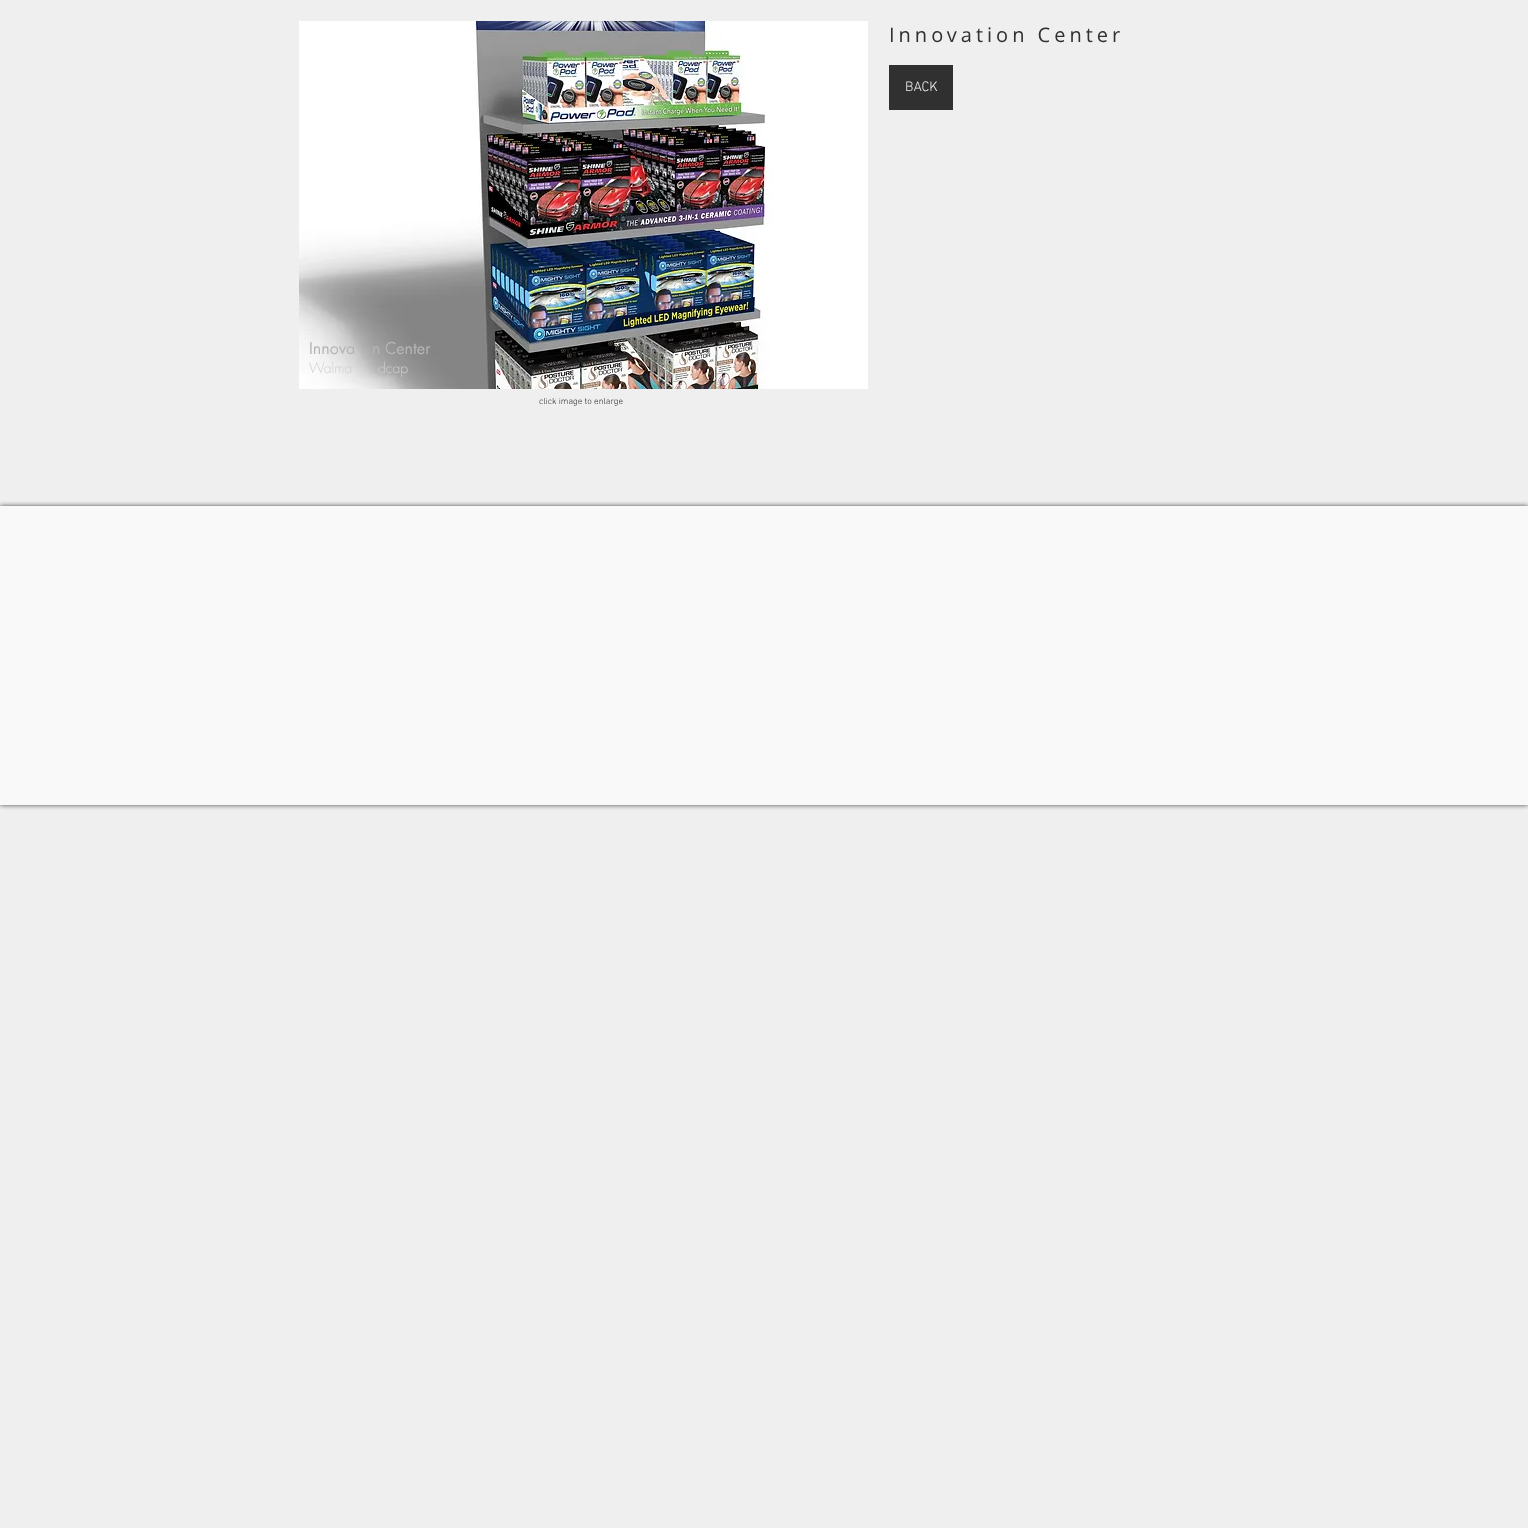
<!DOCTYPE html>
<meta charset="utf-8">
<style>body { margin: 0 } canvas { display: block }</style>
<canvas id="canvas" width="1528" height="1528"></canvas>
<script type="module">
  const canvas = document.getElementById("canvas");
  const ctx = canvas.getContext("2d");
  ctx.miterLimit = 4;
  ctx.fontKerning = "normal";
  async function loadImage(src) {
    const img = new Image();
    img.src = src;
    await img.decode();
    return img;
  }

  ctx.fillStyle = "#efefef";
  ctx.fillRect(0, 0, 1528, 1528);
  ctx.letterSpacing = "4px";
  ctx.font = "20px Open Sans";
  ctx.fillStyle = "#303030";
  ctx.fillText("Innovation Center", 889, 42);
  ctx.fillRect(889, 65, 64, 45);
  ctx.letterSpacing = "0px";
  ctx.font = "300 14px 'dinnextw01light'";
  ctx.fillStyle = "#efefef";
  ctx.fillText("BACK", 905, 91);
  ctx.drawImage(await loadImage("img1.png"), 299, 21, 569, 368);
  ctx.font = "16px futura";
  ctx.fillStyle = "#b5b5b5";
  ctx.fillText("Innova", 309, 354);
  ctx.fillText("n Center", 372, 354);
  ctx.font = "300 14px futura";
  ctx.fillStyle = "#cfcfcf";
  ctx.fillText("Walma", 309, 373);
  ctx.fillText("dcap", 378, 373);
  ctx.font = "300 9px 'dinnextw01light'";
  ctx.fillStyle = "#303030";
  ctx.fillText("click image to enlarge", 539, 404);
  ctx.fillStyle = "rgba(0, 0, 0, 0.7)";
  ctx.filter = "blur(2.5px)";
  ctx.beginPath();
  ctx.rect(0, 506, 1528, 299);
  ctx.fill();
  ctx.filter = "none";
  ctx.fillStyle = "#f9f9f9";
  ctx.fillRect(0, 506, 1528, 299);
</script>
